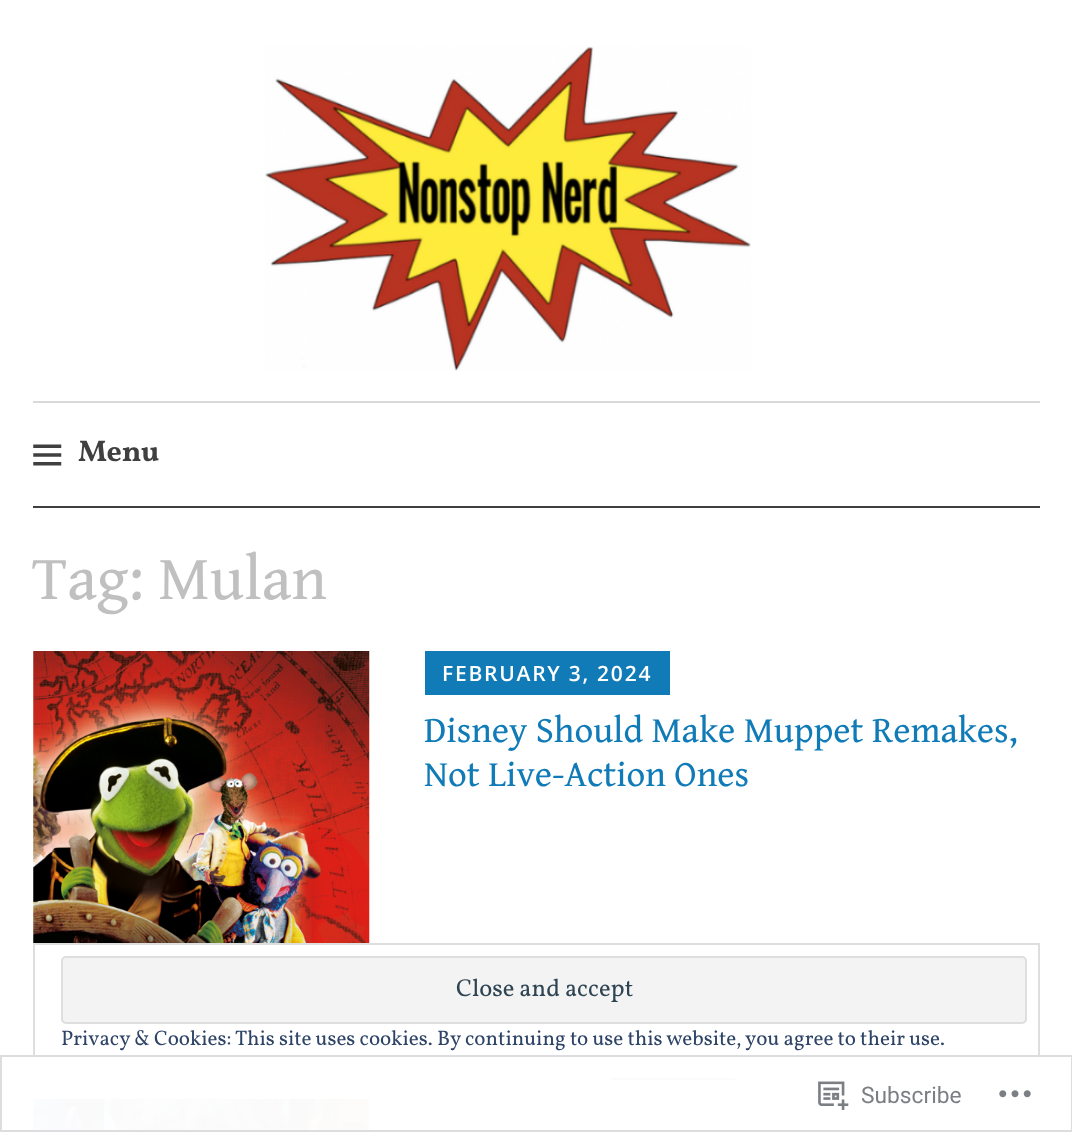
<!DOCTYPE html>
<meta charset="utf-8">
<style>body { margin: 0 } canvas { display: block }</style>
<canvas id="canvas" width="1072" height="1132"></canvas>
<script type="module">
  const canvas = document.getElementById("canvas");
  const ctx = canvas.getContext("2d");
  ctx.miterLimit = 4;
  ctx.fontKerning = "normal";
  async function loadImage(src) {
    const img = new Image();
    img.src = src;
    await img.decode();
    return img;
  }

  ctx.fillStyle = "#ffffff";
  ctx.fillRect(0, 0, 1072, 1132);
  ctx.drawImage(await loadImage("img1.png"), 265, 46, 486, 325);
  ctx.fillStyle = "#d9d9d9";
  ctx.fillRect(33, 401, 1007, 2);
  ctx.fillStyle = "#404040";
  ctx.fillRect(33, 506, 1007, 2);
  ctx.drawImage(await loadImage("img2.png"), 33, 444, 29, 22);
  ctx.font = "bold 30px Vollkorn";
  ctx.fillText("Menu", 78, 461);
  ctx.font = "63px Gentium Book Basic";
  ctx.fillStyle = "#c0c0c0";
  ctx.fillText("Tag: Mulan", 32, 599);
  ctx.drawImage(await loadImage("img3.png"), 33, 651, 337, 292);
  ctx.fillStyle = "#117bb8";
  ctx.fillRect(425, 651, 245, 44);
  ctx.letterSpacing = "1.75px";
  ctx.font = "600 21px Open Sans";
  ctx.fillStyle = "#ffffff";
  ctx.fillText("FEBRUARY 3, 2024", 442, 681);
  ctx.letterSpacing = "0px";
  ctx.font = "36.75px Gentium Book Basic";
  ctx.fillStyle = "#117bb8";
  ctx.fillText("Disney Should Make Muppet Remakes,", 424, 742);
  ctx.fillText("Not Live-Action Ones", 424, 786);
  ctx.drawImage(await loadImage("img4.png"), 33, 1099, 337, 33);
  ctx.strokeStyle = "#dedede";
  ctx.lineWidth = 2;
  ctx.strokeRect(34, 944, 1005, 154);
  ctx.fillStyle = "#f3f3f3";
  ctx.beginPath();
  ctx.roundRect(62, 957, 964, 66, 4);
  ctx.fill();
  ctx.stroke();
  ctx.font = "24.5px Vollkorn";
  ctx.fillStyle = "#2e4453";
  ctx.fillText("Close and accept", 456, 996);
  ctx.font = "21px Vollkorn";
  ctx.fillStyle = "#2e4467";
  ctx.fillText("Privacy & Cookies: This site uses cookies. By continuing to use this website, you agree to their use.", 61, 1045);
  ctx.fillRect(611, 1078, 124, 2);
  ctx.fillStyle = "rgba(255, 255, 255, 0.98)";
  ctx.fillRect(33, 1055, 1007, 77);
  ctx.strokeStyle = "rgba(220, 220, 222, 0.98)";
  ctx.strokeRect(1, 1056, 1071, 75);
  ctx.drawImage(await loadImage("img5.png"), 818, 1081, 31, 29);
  ctx.font = "22.75px Roboto";
  ctx.fillStyle = "#7b7f84";
  ctx.fillText("Subscribe", 861, 1103);
  ctx.drawImage(await loadImage("img6.png"), 999, 1090, 32, 8);
</script>
